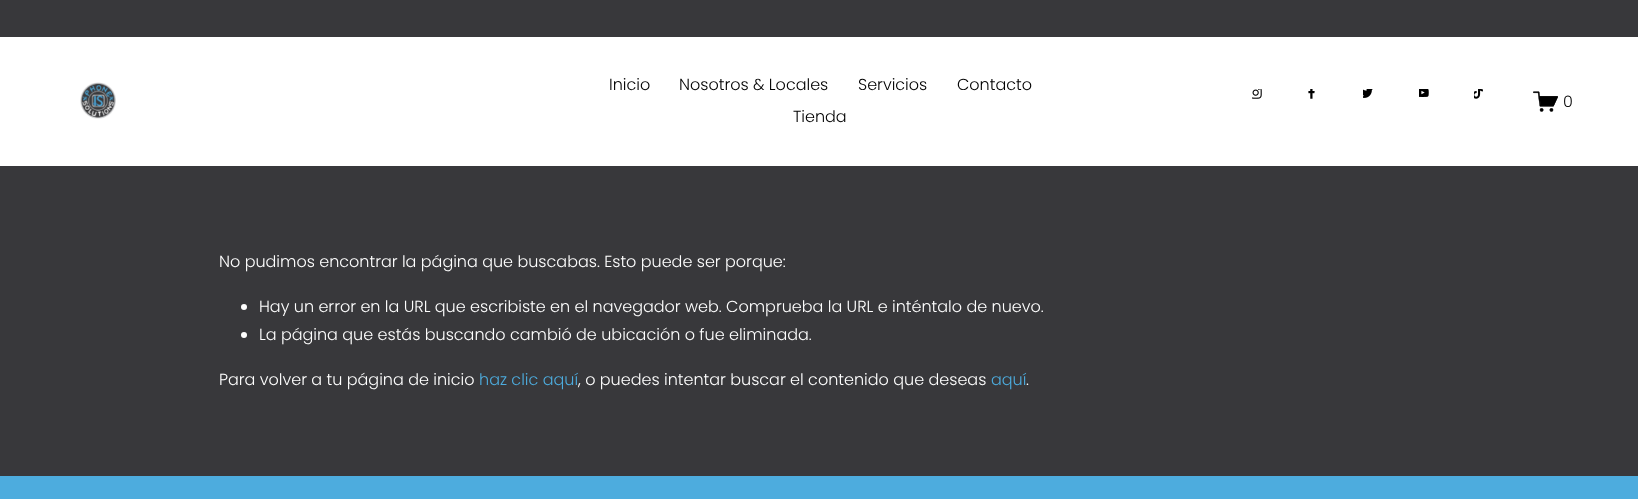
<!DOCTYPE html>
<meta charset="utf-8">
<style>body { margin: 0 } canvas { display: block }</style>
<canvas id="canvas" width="1638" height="499"></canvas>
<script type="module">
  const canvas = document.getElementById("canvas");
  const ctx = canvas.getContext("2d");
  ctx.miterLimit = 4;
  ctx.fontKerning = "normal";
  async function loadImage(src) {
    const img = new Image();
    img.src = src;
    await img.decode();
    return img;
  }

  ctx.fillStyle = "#38383b";
  ctx.fillRect(0, 0, 1638, 499);
  ctx.fillStyle = "#ffffff";
  ctx.fillRect(0, 37, 1638, 129);
  ctx.drawImage(await loadImage("img1.png"), 80, 82, 36, 37);
  ctx.font = "300 16px Poppins";
  ctx.fillStyle = "#000000";
  ctx.fillText("Inicio", 609, 90);
  ctx.fillText("Nosotros & Locales", 679, 90);
  ctx.fillText("Servicios", 858, 90);
  ctx.fillText("Contacto", 957, 90);
  ctx.fillText("Tienda", 793, 122);
  ctx.drawImage(await loadImage("img2.png"), 1252, 89, 10, 10);
  ctx.drawImage(await loadImage("img3.png"), 1308, 89, 7, 10);
  ctx.drawImage(await loadImage("img4.png"), 1363, 89, 10, 9);
  ctx.drawImage(await loadImage("img5.png"), 1419, 89, 10, 8);
  ctx.drawImage(await loadImage("img6.png"), 1474, 89, 9, 10);
  ctx.drawImage(await loadImage("img7.png"), 1533, 91, 25, 21);
  ctx.fillText("0", 1563, 107);
  ctx.fillStyle = "#ffffff";
  ctx.fillText("No pudimos encontrar la página que buscabas. Esto puede ser porque:", 219, 267);
  ctx.beginPath();
  ctx.arc(244, 307, 3, 0, Math.PI * 2);
  ctx.fill();
  ctx.fillText("Hay un error en la URL que escribiste en el navegador web. Comprueba la URL e inténtalo de nuevo.", 259, 312);
  ctx.beginPath();
  ctx.arc(244, 335, 3, 0, Math.PI * 2);
  ctx.fill();
  ctx.fillText("La página que estás buscando cambió de ubicación o fue eliminada.", 259, 340);
  ctx.fillText("Para volver a tu página de inicio", 219, 385);
  ctx.fillStyle = "#4dacde";
  ctx.fillText("haz clic aquí", 479, 385);
  ctx.fillStyle = "#ffffff";
  ctx.fillText(", o puedes intentar buscar el contenido que deseas", 578, 385);
  ctx.fillStyle = "#4dacde";
  ctx.fillText("aquí", 991, 385);
  ctx.fillStyle = "#ffffff";
  ctx.fillText(".", 1026, 385);
  ctx.fillStyle = "#4dacde";
  ctx.fillRect(0, 476, 1638, 23);
</script>
